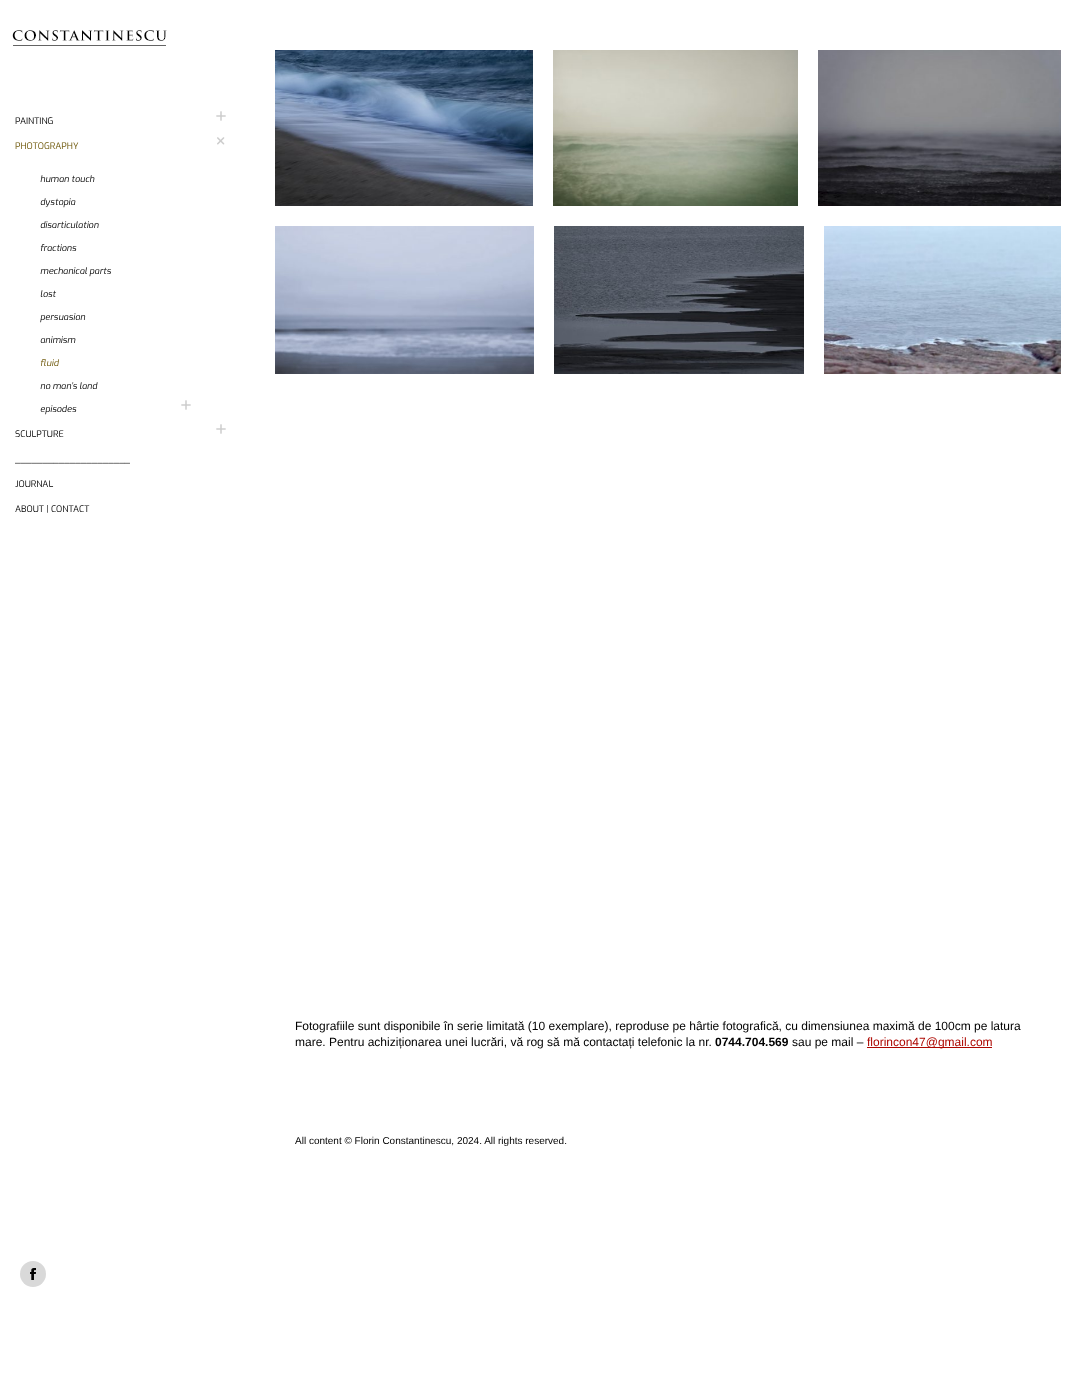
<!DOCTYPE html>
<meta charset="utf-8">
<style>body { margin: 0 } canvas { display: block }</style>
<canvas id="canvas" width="1082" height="1392"></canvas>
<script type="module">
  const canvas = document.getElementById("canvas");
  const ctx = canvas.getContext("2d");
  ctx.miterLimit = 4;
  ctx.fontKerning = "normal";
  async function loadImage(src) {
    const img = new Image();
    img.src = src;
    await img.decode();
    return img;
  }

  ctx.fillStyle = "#ffffff";
  ctx.fillRect(0, 0, 1082, 1392);
  ctx.drawImage(await loadImage("img1.png"), 12, 30, 155, 16);
  ctx.font = "9px Exo";
  ctx.fillStyle = "#000000";
  ctx.fillText("PAINTING", 15, 124);
  ctx.drawImage(await loadImage("img2.png"), 216, 111, 10, 10);
  ctx.drawImage(await loadImage("img3.png"), 217, 137, 8, 8);
  ctx.fillStyle = "#6b5404";
  ctx.fillText("PHOTOGRAPHY", 15, 149);
  ctx.font = "italic 9px Exo";
  ctx.fillStyle = "#000000";
  ctx.fillText("human touch", 40, 182);
  ctx.fillText("dystopia", 40, 205);
  ctx.fillText("disarticulation", 40, 228);
  ctx.fillText("fractions", 40, 251);
  ctx.fillText("mechanical parts", 40, 274);
  ctx.fillText("lost", 40, 297);
  ctx.fillText("persuasion", 40, 320);
  ctx.fillText("animism", 40, 343);
  ctx.fillStyle = "#6b5404";
  ctx.fillText("fluid", 40, 366);
  ctx.fillStyle = "#000000";
  ctx.fillText("no man’s land", 40, 389);
  ctx.fillText("episodes", 40, 412);
  ctx.drawImage(await loadImage("img2.png"), 181, 400, 10, 10);
  ctx.font = "9px Exo";
  ctx.fillText("SCULPTURE", 15, 437);
  ctx.drawImage(await loadImage("img2.png"), 216, 424, 10, 10);
  ctx.fillText("_____________________", 15, 462);
  ctx.fillText("JOURNAL", 15, 487);
  ctx.fillText("ABOUT | CONTACT", 15, 512);
  ctx.fillStyle = "#d9d9d9";
  ctx.beginPath();
  ctx.arc(33, 1274, 13, 0, Math.PI * 2);
  ctx.fill();
  ctx.drawImage(await loadImage("img4.png"), 30, 1268, 6, 12);
  ctx.drawImage(await loadImage("img5.png"), 275, 50, 258, 156);
  ctx.drawImage(await loadImage("img6.png"), 553, 50, 245, 156);
  ctx.drawImage(await loadImage("img7.png"), 818, 50, 243, 156);
  ctx.drawImage(await loadImage("img8.png"), 275, 226, 259, 148);
  ctx.drawImage(await loadImage("img9.png"), 554, 226, 250, 148);
  ctx.drawImage(await loadImage("img10.png"), 824, 226, 237, 148);
  ctx.font = "12px Liberation Sans";
  ctx.fillStyle = "#000000";
  ctx.fillText("Fotografiile sunt disponibile în serie limitată (10 exemplare), reproduse pe hârtie fotografică, cu dimensiunea maximă de 100cm pe latura", 295, 1030);
  ctx.fillText("mare. Pentru achiziționarea unei lucrări, vă rog să mă contactați telefonic la nr.", 295, 1046);
  ctx.font = "bold 12px Liberation Sans";
  ctx.fillText("0744.704.569", 715, 1046);
  ctx.font = "12px Liberation Sans";
  ctx.fillText("sau pe mail –", 792, 1046);
  ctx.fillStyle = "#ad0701";
  ctx.fillRect(867, 1047, 125, 1);
  ctx.fillText("florincon47@gmail.com", 867, 1046);
  ctx.font = "10px Liberation Sans";
  ctx.fillStyle = "#000000";
  ctx.fillText("All content © Florin Constantinescu, 2024. All rights reserved.", 295, 1144);
</script>
